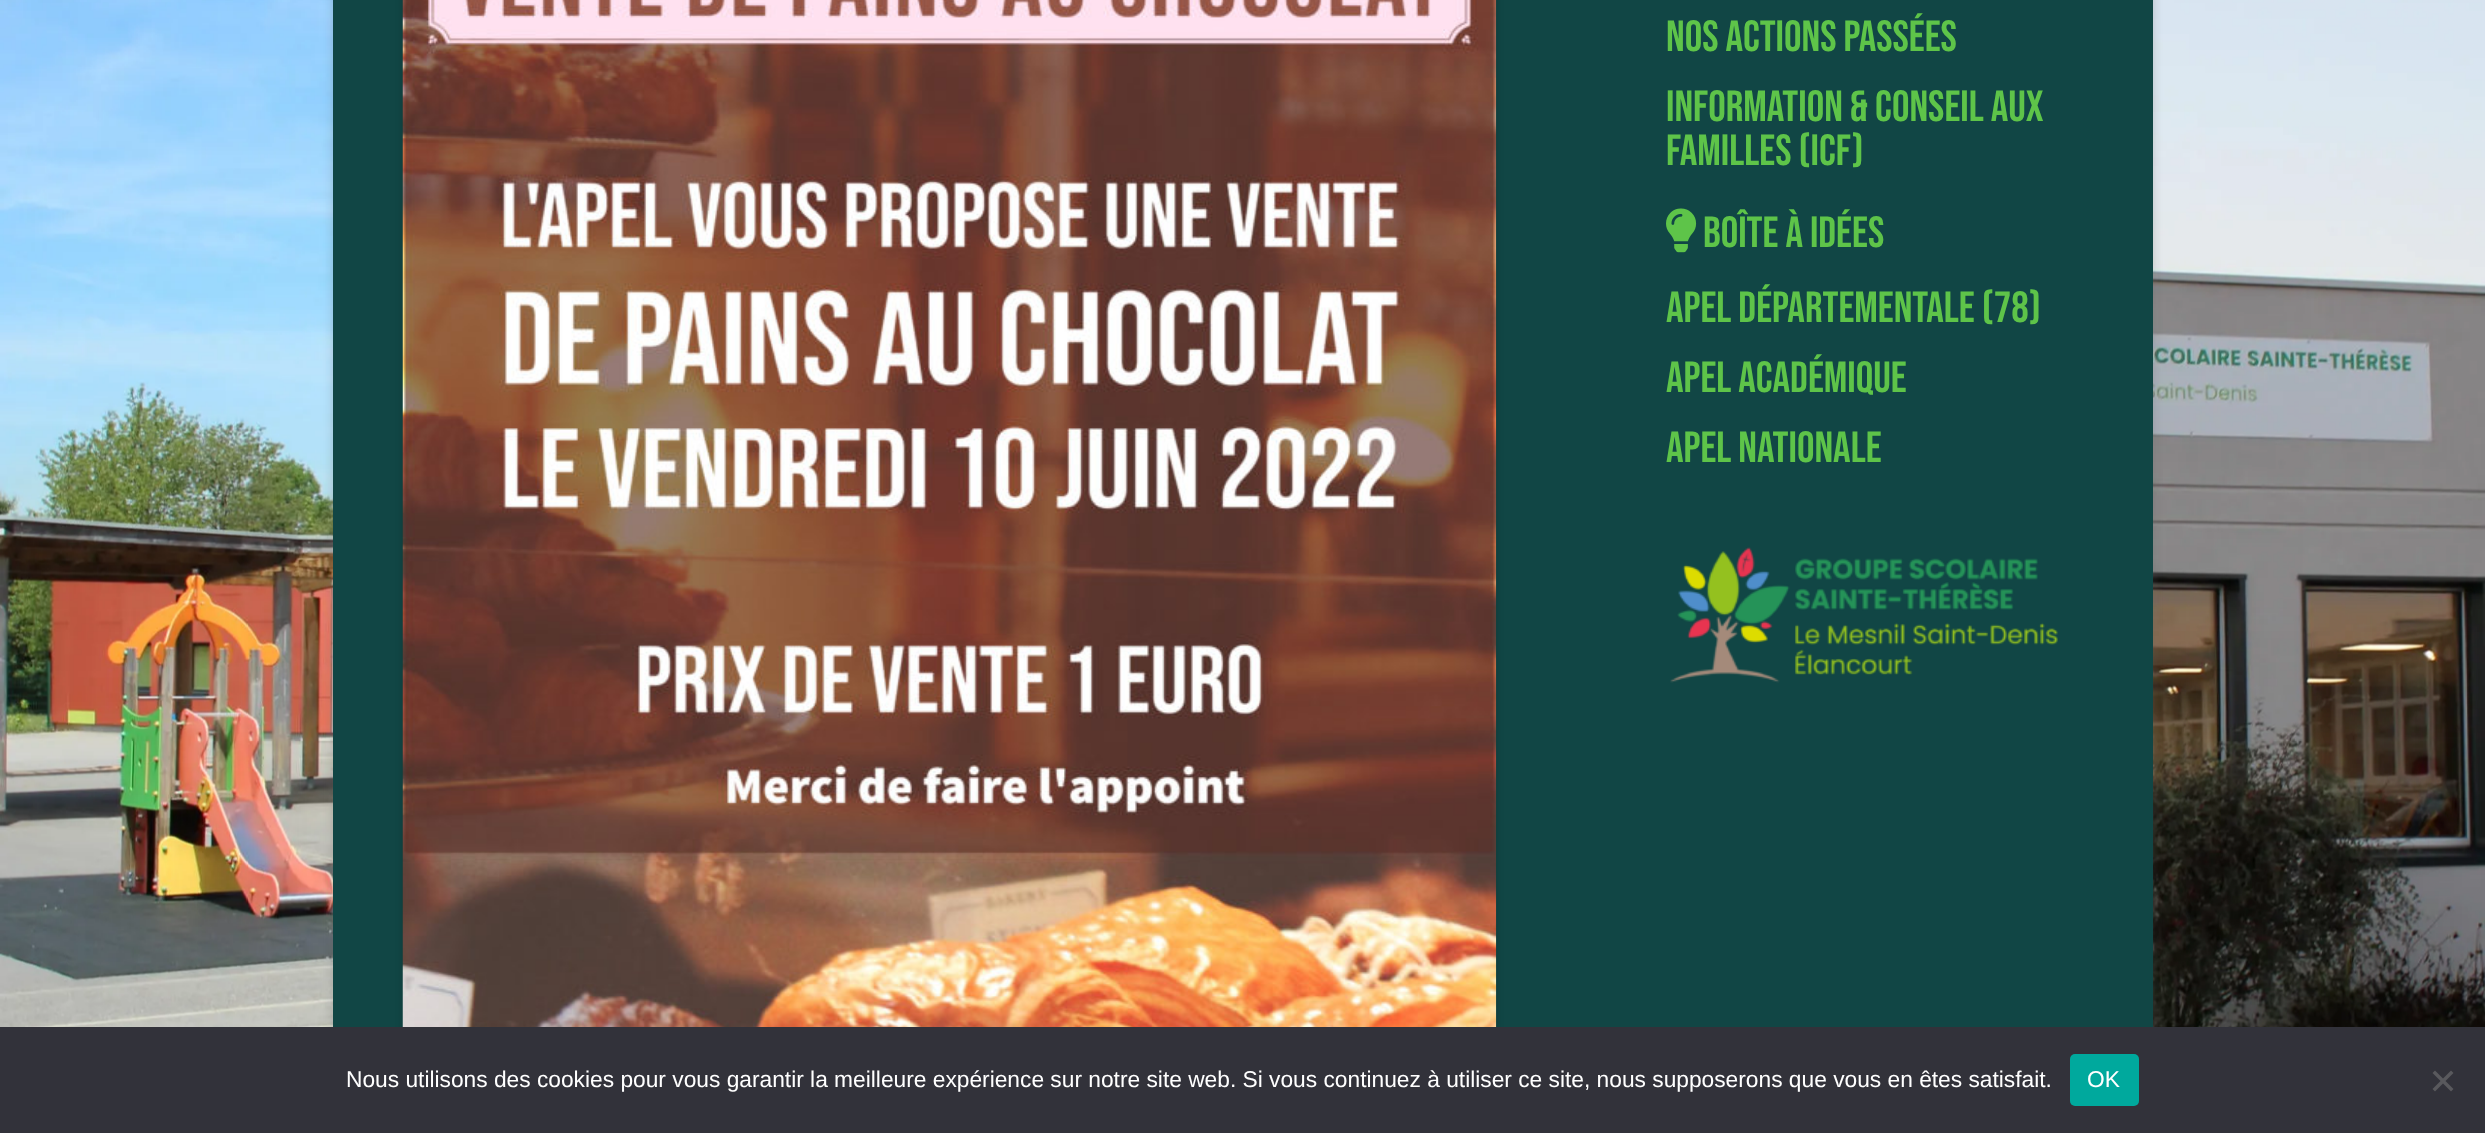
<!DOCTYPE html>
<meta charset="utf-8">
<style>body { margin: 0 } canvas { display: block }</style>
<canvas id="canvas" width="2485" height="1133"></canvas>
<script type="module">
  const canvas = document.getElementById("canvas");
  const ctx = canvas.getContext("2d");
  ctx.miterLimit = 4;
  ctx.fontKerning = "normal";
  async function loadImage(src) {
    const img = new Image();
    img.src = src;
    await img.decode();
    return img;
  }

  ctx.fillStyle = "#ffffff";
  ctx.fillRect(0, 0, 2485, 1133);
  ctx.drawImage(await loadImage("img1.png"), 0, 0, 2485, 1027);
  ctx.fillStyle = "rgba(100, 100, 100, 0.3)";
  ctx.filter = "blur(5px)";
  ctx.beginPath();
  ctx.rect(333, -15, 1820, 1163);
  ctx.fill();
  ctx.filter = "none";
  ctx.fillStyle = "#114645";
  ctx.fillRect(333, 0, 1820, 1027);
  ctx.fillStyle = "rgba(0, 0, 0, 0.2)";
  ctx.filter = "blur(3.5px)";
  ctx.beginPath();
  ctx.roundRect(403, -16, 1093, 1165, 5);
  ctx.fill();
  ctx.filter = "none";
  ctx.drawImage(await loadImage("img2.png"), 402, 0, 1095, 1027);
  ctx.font = "43.75px Bebas Neue";
  ctx.fillStyle = "#5ec449";
  ctx.fillText("Nos actions passées", 1666, 51);
  ctx.fillText("Information & Conseil aux", 1666, 121);
  ctx.fillText("Familles (ICF)", 1666, 165);
  ctx.drawImage(await loadImage("img3.png"), 1666, 208, 31, 45);
  ctx.fillText("Boîte à Idées", 1703, 247);
  ctx.fillText("APEL départementale (78)", 1666, 322);
  ctx.fillText("APEL Académique", 1666, 392);
  ctx.fillText("APEL Nationale", 1666, 462);
  ctx.drawImage(await loadImage("img4.png"), 1670, 547, 388, 136);
  ctx.fillStyle = "#32323a";
  ctx.fillRect(0, 1027, 2485, 106);
  ctx.font = "22.75px Liberation Sans";
  ctx.fillStyle = "#ffffff";
  ctx.fillText("Nous utilisons des cookies pour vous garantir la meilleure expérience sur notre site web. Si vous continuez à utiliser ce site, nous supposerons que vous en êtes satisfait.", 346, 1087);
  ctx.fillStyle = "#00a99d";
  ctx.beginPath();
  ctx.roundRect(2070, 1054, 69, 52, 5);
  ctx.fill();
  ctx.fillStyle = "#ffffff";
  ctx.fillText("OK", 2087, 1087);
  ctx.fillStyle = "#59595d";
  ctx.beginPath();
  ctx.moveTo(2451, 1070.5);
  ctx.lineTo(2453.5, 1073);
  ctx.lineTo(2435, 1091.5);
  ctx.lineTo(2432.5, 1089);
  ctx.closePath();
  ctx.fill();
  ctx.beginPath();
  ctx.moveTo(2432.5, 1073);
  ctx.lineTo(2435, 1070.5);
  ctx.lineTo(2453.5, 1089);
  ctx.lineTo(2451, 1091.5);
  ctx.closePath();
  ctx.fill();
</script>
